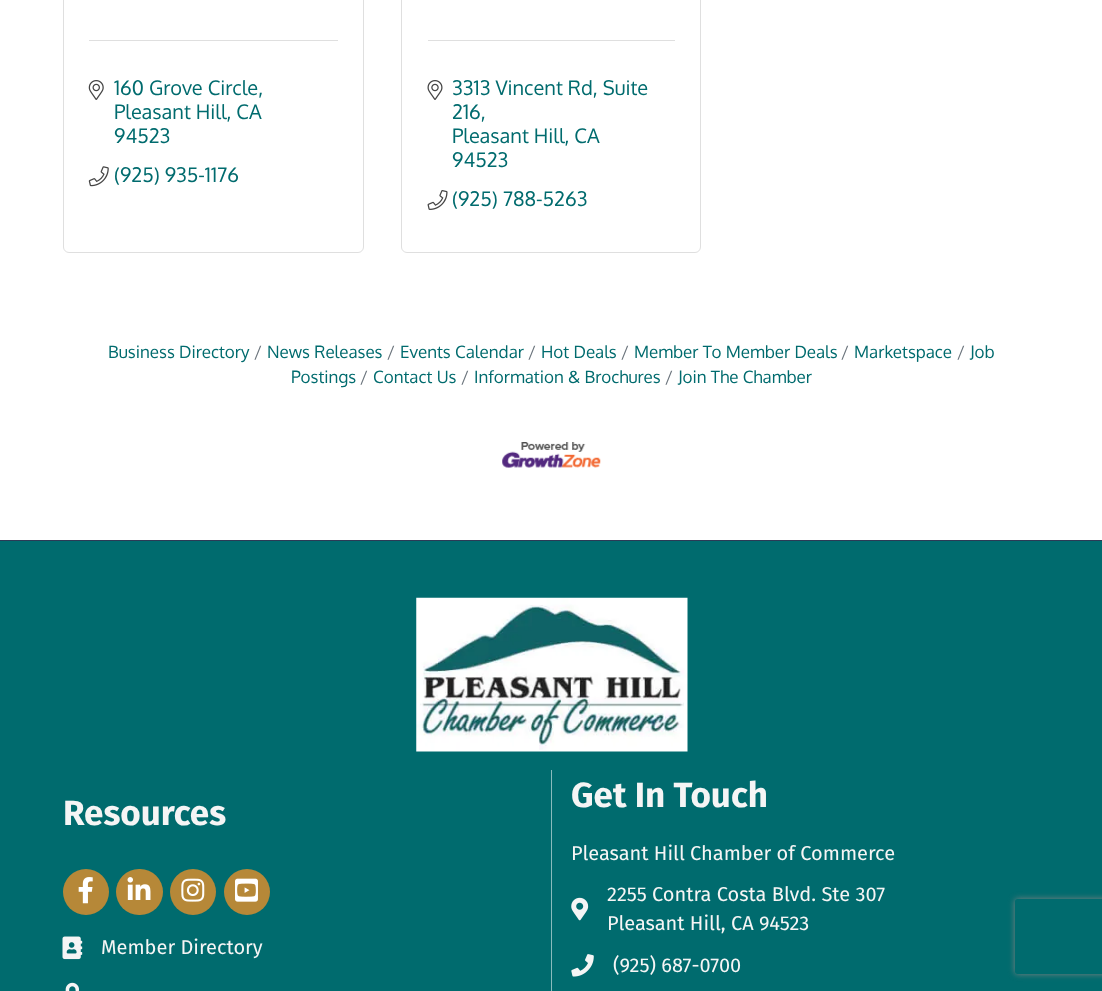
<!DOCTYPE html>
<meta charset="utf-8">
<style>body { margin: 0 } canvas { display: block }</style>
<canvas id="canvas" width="1102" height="991"></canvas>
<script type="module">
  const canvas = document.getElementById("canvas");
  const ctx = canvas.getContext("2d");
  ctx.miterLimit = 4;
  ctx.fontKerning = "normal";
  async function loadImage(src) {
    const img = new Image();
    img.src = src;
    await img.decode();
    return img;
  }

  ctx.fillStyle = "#ffffff";
  ctx.fillRect(0, 0, 1102, 991);
  ctx.beginPath();
  ctx.roundRect(63.5, -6.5, 300, 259, 5.5);
  ctx.strokeStyle = "#dfdfdf";
  ctx.stroke();
  ctx.fillStyle = "#dfdfdf";
  ctx.fillRect(89, 40, 249, 1);
  ctx.drawImage(await loadImage("img1.png"), 88, 80, 16, 20);
  ctx.font = "20px Oxygen";
  ctx.fillStyle = "#006b6e";
  ctx.fillText("160 Grove Circle,", 114, 95);
  ctx.fillText("Pleasant Hill, CA", 114, 119);
  ctx.fillText("94523", 114, 143);
  ctx.drawImage(await loadImage("img2.png"), 88, 166, 21, 21);
  ctx.fillText("(925) 935-1176", 114, 182);
  ctx.beginPath();
  ctx.roundRect(401.5, -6.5, 299, 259, 5.5);
  ctx.stroke();
  ctx.fillStyle = "#dfdfdf";
  ctx.fillRect(428, 40, 247, 1);
  ctx.drawImage(await loadImage("img3.png"), 427, 80, 16, 20);
  ctx.fillStyle = "#006b6e";
  ctx.fillText("3313 Vincent Rd, Suite", 452, 95);
  ctx.fillText("216,", 452, 119);
  ctx.fillText("Pleasant Hill, CA", 452, 143);
  ctx.fillText("94523", 452, 167);
  ctx.drawImage(await loadImage("img4.png"), 427, 190, 21, 20);
  ctx.fillText("(925) 788-5263", 452, 206);
  ctx.font = "17px Oxygen";
  ctx.fillText("Business Directory", 108, 358);
  ctx.fillStyle = "#6c757d";
  ctx.fillText("/", 254, 358);
  ctx.fillStyle = "#006b6e";
  ctx.fillText("News Releases", 267, 358);
  ctx.fillStyle = "#6c757d";
  ctx.fillText("/", 957, 358);
  ctx.fillStyle = "#006b6e";
  ctx.fillText("Job", 970, 358);
  ctx.fillText("Postings", 291, 383);
  ctx.fillStyle = "#6c757d";
  ctx.fillText("/", 387, 358);
  ctx.fillStyle = "#006b6e";
  ctx.fillText("Events Calendar", 400, 358);
  ctx.fillStyle = "#6c757d";
  ctx.fillText("/", 528, 358);
  ctx.fillStyle = "#006b6e";
  ctx.fillText("Hot Deals", 541, 358);
  ctx.fillStyle = "#6c757d";
  ctx.fillText("/", 621, 358);
  ctx.fillStyle = "#006b6e";
  ctx.fillText("Member To Member Deals", 634, 358);
  ctx.fillStyle = "#6c757d";
  ctx.fillText("/", 841, 358);
  ctx.fillStyle = "#006b6e";
  ctx.fillText("Marketspace", 854, 358);
  ctx.fillStyle = "#6c757d";
  ctx.fillText("/", 360, 383);
  ctx.fillStyle = "#006b6e";
  ctx.fillText("Contact Us", 373, 383);
  ctx.fillStyle = "#6c757d";
  ctx.fillText("/", 461, 383);
  ctx.fillStyle = "#006b6e";
  ctx.fillText("Information & Brochures", 474, 383);
  ctx.fillStyle = "#6c757d";
  ctx.fillText("/", 665, 383);
  ctx.fillStyle = "#006b6e";
  ctx.fillText("Join The Chamber", 678, 383);
  ctx.drawImage(await loadImage("img5.png"), 502, 442, 99, 26);
  ctx.fillRect(0, 541, 1102, 450);
  ctx.fillStyle = "#2c3a56";
  ctx.fillRect(0, 540, 1102, 1);
  ctx.drawImage(await loadImage("img6.png"), 416, 597, 272, 155);
  ctx.font = "bold 35px Fira Sans";
  ctx.fillStyle = "#f5f5f5";
  ctx.fillText("Resources", 63, 825);
  ctx.fillStyle = "#b68838";
  ctx.beginPath();
  ctx.arc(86, 892, 23, 0, Math.PI * 2);
  ctx.fill();
  ctx.drawImage(await loadImage("img7.png"), 78, 877, 15, 27);
  ctx.beginPath();
  ctx.roundRect(116, 869, 47, 46, 23);
  ctx.fill();
  ctx.drawImage(await loadImage("img8.png"), 127, 877, 24, 23);
  ctx.beginPath();
  ctx.arc(193, 892, 23, 0, Math.PI * 2);
  ctx.fill();
  ctx.drawImage(await loadImage("img9.png"), 181, 878, 24, 24);
  ctx.beginPath();
  ctx.arc(247, 892, 23, 0, Math.PI * 2);
  ctx.fill();
  ctx.drawImage(await loadImage("img10.png"), 235, 878, 23, 24);
  ctx.drawImage(await loadImage("img11.png"), 62, 936, 21, 24);
  ctx.font = "20px Fira Sans";
  ctx.fillStyle = "#f5f5f5";
  ctx.fillText("Member Directory", 101, 954);
  ctx.drawImage(await loadImage("img12.png"), 65, 982, 14, 9);
  ctx.fillStyle = "#8abbbc";
  ctx.fillRect(551, 770, 1, 221);
  ctx.font = "bold 35px Fira Sans";
  ctx.fillStyle = "#f5f5f5";
  ctx.fillText("Get In Touch", 571, 807);
  ctx.font = "20px Fira Sans";
  ctx.fillText("Pleasant Hill Chamber of Commerce", 571, 860);
  ctx.drawImage(await loadImage("img13.png"), 571, 897, 18, 24);
  ctx.fillText("2255 Contra Costa Blvd. Ste 307", 607, 901);
  ctx.fillText("Pleasant Hill, CA 94523", 607, 930);
  ctx.drawImage(await loadImage("img14.png"), 571, 954, 23, 23);
  ctx.fillText("(925) 687-0700", 613, 972);
  ctx.save();
  ctx.beginPath();
  ctx.moveTo(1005, 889);
  ctx.lineTo(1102, 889);
  ctx.lineTo(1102, 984);
  ctx.lineTo(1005, 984);
  ctx.closePath();
  ctx.moveTo(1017.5, 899);
  ctx.lineTo(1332.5, 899);
  ctx.bezierCurveTo(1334, 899, 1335, 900, 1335, 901.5);
  ctx.lineTo(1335, 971.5);
  ctx.bezierCurveTo(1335, 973, 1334, 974, 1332.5, 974);
  ctx.lineTo(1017.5, 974);
  ctx.bezierCurveTo(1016, 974, 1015, 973, 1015, 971.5);
  ctx.lineTo(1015, 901.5);
  ctx.bezierCurveTo(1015, 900, 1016, 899, 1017.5, 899);
  ctx.closePath();
  ctx.clip("evenodd");
  ctx.fillStyle = "#808080";
  ctx.filter = "blur(3px)";
  ctx.beginPath();
  ctx.roundRect(1015, 899, 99, 75, 2.5);
  ctx.fill();
  ctx.filter = "none";
  ctx.restore();
</script>
